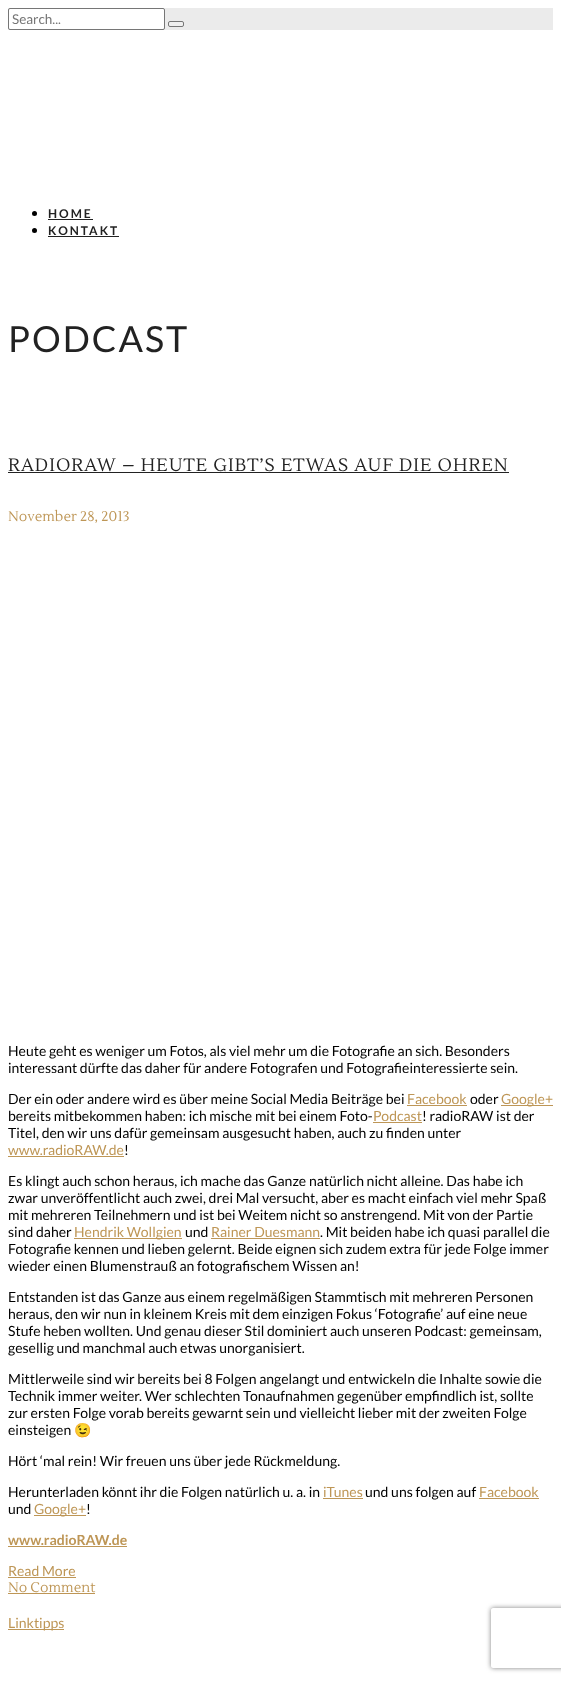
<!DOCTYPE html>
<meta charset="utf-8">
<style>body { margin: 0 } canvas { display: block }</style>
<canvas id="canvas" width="561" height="1682"></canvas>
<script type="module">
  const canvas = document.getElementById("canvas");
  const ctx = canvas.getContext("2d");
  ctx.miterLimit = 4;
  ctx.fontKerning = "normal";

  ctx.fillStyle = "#ffffff";
  ctx.fillRect(0, 0, 561, 1682);
  ctx.fillStyle = "#ebebeb";
  ctx.fillRect(8, 8, 545, 22);
  ctx.fillStyle = "#ffffff";
  ctx.beginPath();
  ctx.roundRect(8.5, 8.5, 156, 21, 1.5);
  ctx.fill();
  ctx.strokeStyle = "#767676";
  ctx.stroke();
  ctx.font = "13.5px Lato";
  ctx.fillStyle = "#757575";
  ctx.fillText("Search...", 12, 24);
  ctx.fillStyle = "#efefef";
  ctx.beginPath();
  ctx.roundRect(168.5, 21.5, 15, 5, 1.5);
  ctx.fill();
  ctx.stroke();
  ctx.fillStyle = "#000000";
  ctx.beginPath();
  ctx.arc(34.5, 213.5, 2.5, 0, Math.PI * 2);
  ctx.fill();
  ctx.letterSpacing = "2px";
  ctx.font = "bold 12px Lato";
  ctx.fillStyle = "#222222";
  ctx.fillText("HOME", 48, 218);
  ctx.fillRect(48, 219, 45, 1);
  ctx.fillStyle = "#000000";
  ctx.beginPath();
  ctx.arc(34.5, 230.5, 2.5, 0, Math.PI * 2);
  ctx.fill();
  ctx.fillStyle = "#222222";
  ctx.fillText("KONTAKT", 48, 235);
  ctx.fillRect(48, 236, 71, 1);
  ctx.font = "36px Lato";
  ctx.fillText("PODCAST", 8, 352);
  ctx.letterSpacing = "1px";
  ctx.font = "18px Lustria";
  ctx.fillText("RADIORAW – HEUTE GIBT’S ETWAS AUF DIE OHREN", 8, 471);
  ctx.fillRect(8, 472, 501, 1);
  ctx.letterSpacing = "0px";
  ctx.font = "14px Lustria";
  ctx.fillStyle = "#be9656";
  ctx.fillText("November 28, 2013", 8, 521);
  ctx.font = "14px Lato";
  ctx.fillStyle = "#000000";
  ctx.fillText("Heute geht es weniger um Fotos, als viel mehr um die Fotografie an sich. Besonders", 8, 1056);
  ctx.fillText("interessant dürfte das daher für andere Fotografen und Fotografieinteressierte sein.", 8, 1073);
  ctx.fillText("Der ein oder andere wird es über meine Social Media Beiträge bei", 8, 1104);
  ctx.fillStyle = "#be9656";
  ctx.fillText("Facebook", 407, 1104);
  ctx.fillRect(407, 1105, 60, 1);
  ctx.fillStyle = "#000000";
  ctx.fillText("oder", 470, 1104);
  ctx.fillStyle = "#be9656";
  ctx.fillRect(501, 1105, 52, 1);
  ctx.fillText("Google+", 501, 1104);
  ctx.fillStyle = "#000000";
  ctx.fillText("bereits mitbekommen haben: ich mische mit bei einem Foto-", 8, 1121);
  ctx.fillStyle = "#be9656";
  ctx.fillText("Podcast", 373, 1121);
  ctx.fillRect(373, 1122, 49, 1);
  ctx.fillStyle = "#000000";
  ctx.fillText("! radioRAW ist der", 422, 1121);
  ctx.fillText("Titel, den wir uns dafür gemeinsam ausgesucht haben, auch zu finden unter", 8, 1138);
  ctx.fillStyle = "#be9656";
  ctx.fillText("www.radioRAW.de", 8, 1155);
  ctx.fillRect(8, 1156, 116, 1);
  ctx.fillStyle = "#000000";
  ctx.fillText("!", 124, 1155);
  ctx.fillText("Es klingt auch schon heraus, ich mache das Ganze natürlich nicht alleine. Das habe ich", 8, 1186);
  ctx.fillText("zwar unveröffentlicht auch zwei, drei Mal versucht, aber es macht einfach viel mehr Spaß", 8, 1203);
  ctx.fillText("mit mehreren Teilnehmern und ist bei Weitem nicht so anstrengend. Mit von der Partie", 8, 1220);
  ctx.fillText("sind daher", 8, 1237);
  ctx.fillStyle = "#be9656";
  ctx.fillRect(74, 1238, 108, 1);
  ctx.fillText("Hendrik Wollgien", 74, 1237);
  ctx.fillStyle = "#000000";
  ctx.fillText("und", 185, 1237);
  ctx.fillStyle = "#be9656";
  ctx.fillText("Rainer Duesmann", 211, 1237);
  ctx.fillRect(211, 1238, 109, 1);
  ctx.fillStyle = "#000000";
  ctx.fillText(". Mit beiden habe ich quasi parallel die", 320, 1237);
  ctx.fillText("Fotografie kennen und lieben gelernt. Beide eignen sich zudem extra für jede Folge immer", 8, 1254);
  ctx.fillText("wieder einen Blumenstrauß an fotografischem Wissen an!", 8, 1271);
  ctx.fillText("Entstanden ist das Ganze aus einem regelmäßigen Stammtisch mit mehreren Personen", 8, 1302);
  ctx.fillText("heraus, den wir nun in kleinem Kreis mit dem einzigen Fokus ‘Fotografie’ auf eine neue", 8, 1319);
  ctx.fillText("Stufe heben wollten. Und genau dieser Stil dominiert auch unseren Podcast: gemeinsam,", 8, 1336);
  ctx.fillText("gesellig und manchmal auch etwas unorganisiert.", 8, 1353);
  ctx.fillText("Mittlerweile sind wir bereits bei 8 Folgen angelangt und entwickeln die Inhalte sowie die", 8, 1384);
  ctx.fillText("Technik immer weiter. Wer schlechten Tonaufnahmen gegenüber empfindlich ist, sollte", 8, 1401);
  ctx.fillText("zur ersten Folge vorab bereits gewarnt sein und vielleicht lieber mit der zweiten Folge", 8, 1418);
  ctx.fillText("einsteigen", 8, 1435);
  ctx.font = "14px Noto Color Emoji";
  ctx.fillText("😉", 74, 1435);
  ctx.font = "14px Lato";
  ctx.fillText("Hört ‘mal rein! Wir freuen uns über jede Rückmeldung.", 8, 1466);
  ctx.fillText("Herunterladen könnt ihr die Folgen natürlich u. a. in", 8, 1497);
  ctx.fillStyle = "#be9656";
  ctx.fillText("iTunes", 323, 1497);
  ctx.fillRect(323, 1498, 40, 1);
  ctx.fillStyle = "#000000";
  ctx.fillText("und uns folgen auf", 365, 1497);
  ctx.fillStyle = "#be9656";
  ctx.fillText("Facebook", 479, 1497);
  ctx.fillRect(479, 1498, 60, 1);
  ctx.fillStyle = "#000000";
  ctx.fillText("und", 8, 1514);
  ctx.fillStyle = "#be9656";
  ctx.fillRect(34, 1515, 52, 1);
  ctx.fillText("Google+", 34, 1514);
  ctx.fillStyle = "#000000";
  ctx.fillText("!", 86, 1514);
  ctx.font = "bold 14px Lato";
  ctx.fillStyle = "#be9656";
  ctx.fillText("www.radioRAW.de", 8, 1545);
  ctx.fillRect(8, 1546, 119, 1);
  ctx.font = "14px Lato";
  ctx.fillText("Read More", 8, 1576);
  ctx.fillRect(8, 1577, 68, 1);
  ctx.font = "14px Lustria";
  ctx.fillText("No Comment", 8, 1592);
  ctx.fillRect(8, 1593, 87, 1);
  ctx.fillRect(8, 1629, 56, 1);
  ctx.font = "14px Lato";
  ctx.fillText("Linktipps", 8, 1628);
  ctx.save();
  ctx.beginPath();
  ctx.moveTo(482, 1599);
  ctx.lineTo(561, 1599);
  ctx.lineTo(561, 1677);
  ctx.lineTo(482, 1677);
  ctx.closePath();
  ctx.moveTo(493, 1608);
  ctx.lineTo(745, 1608);
  ctx.bezierCurveTo(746, 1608, 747, 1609, 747, 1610);
  ctx.lineTo(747, 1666);
  ctx.bezierCurveTo(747, 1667, 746, 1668, 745, 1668);
  ctx.lineTo(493, 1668);
  ctx.bezierCurveTo(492, 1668, 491, 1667, 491, 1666);
  ctx.lineTo(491, 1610);
  ctx.bezierCurveTo(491, 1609, 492, 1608, 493, 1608);
  ctx.closePath();
  ctx.clip("evenodd");
  ctx.fillStyle = "#808080";
  ctx.filter = "blur(2.5px)";
  ctx.beginPath();
  ctx.roundRect(491, 1608, 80, 60, 2);
  ctx.fill();
  ctx.filter = "none";
  ctx.restore();
</script>
